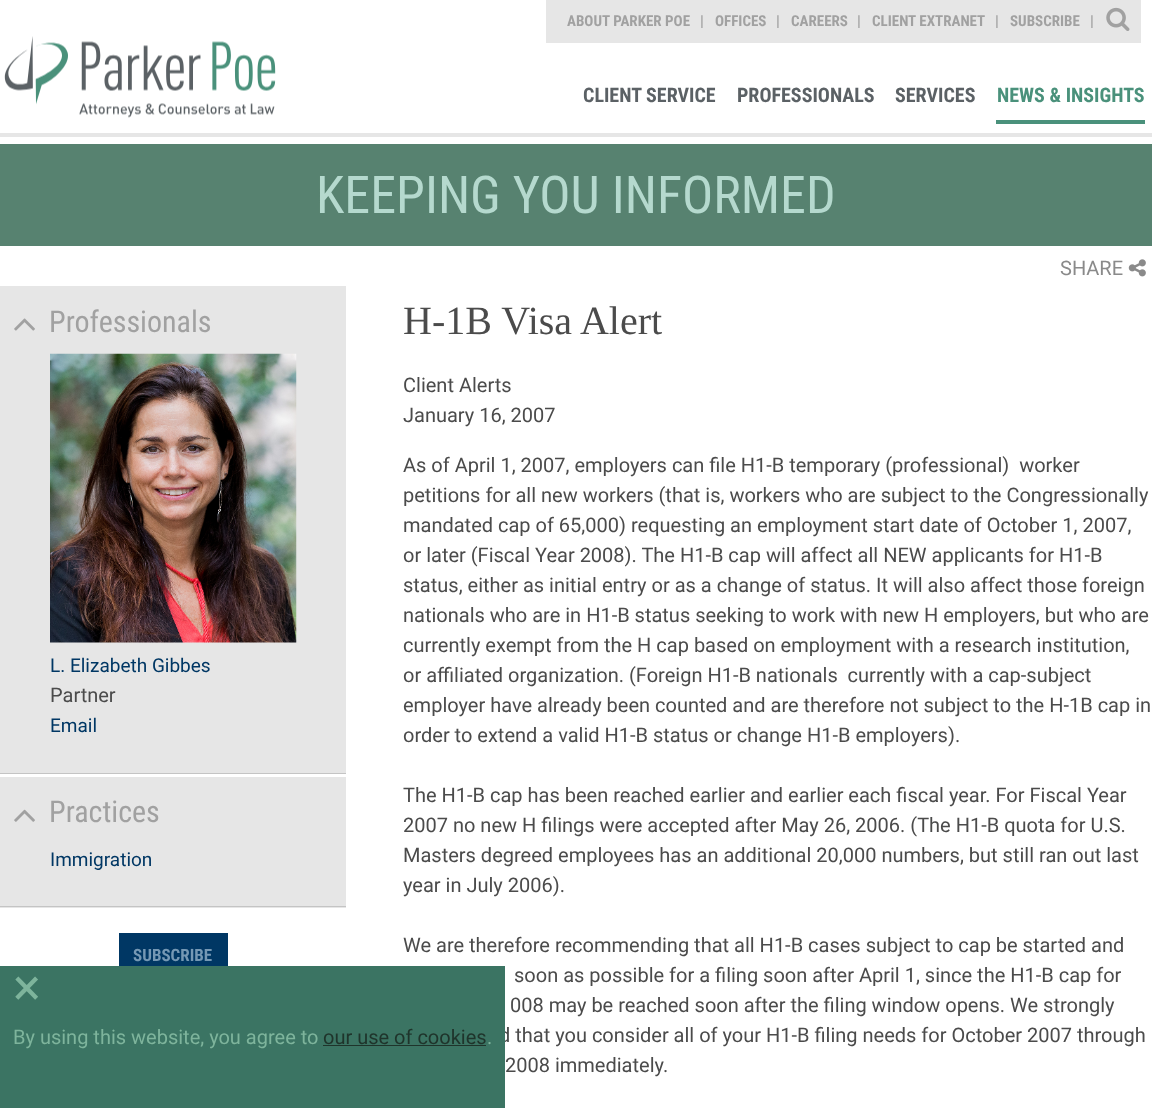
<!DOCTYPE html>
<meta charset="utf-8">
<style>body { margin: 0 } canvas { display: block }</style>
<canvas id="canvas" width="1152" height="1108"></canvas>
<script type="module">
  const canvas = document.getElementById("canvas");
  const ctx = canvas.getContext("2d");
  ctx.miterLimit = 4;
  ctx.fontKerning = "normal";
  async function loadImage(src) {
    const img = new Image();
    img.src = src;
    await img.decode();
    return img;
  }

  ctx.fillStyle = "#ffffff";
  ctx.fillRect(0, 0, 1152, 1108);
  ctx.fillStyle = "#e6e6e6";
  ctx.fillRect(0, 133, 1152, 4);
  ctx.drawImage(await loadImage("img1.png"), 4, 36, 272, 82);
  ctx.fillRect(546, 0, 595, 43);
  ctx.font = "bold 15px Roboto Condensed";
  ctx.fillStyle = "#a1a1a1";
  ctx.fillText("ABOUT PARKER POE", 567, 26);
  ctx.fillText("|", 700, 26);
  ctx.fillText("OFFICES", 715, 26);
  ctx.fillText("|", 776, 26);
  ctx.fillText("CAREERS", 791, 26);
  ctx.fillText("|", 857, 26);
  ctx.fillText("CLIENT EXTRANET", 872, 26);
  ctx.fillText("|", 995, 26);
  ctx.fillText("SUBSCRIBE", 1010, 26);
  ctx.fillText("|", 1090, 26);
  ctx.drawImage(await loadImage("img2.png"), 1106, 7, 24, 24);
  ctx.font = "bold 20px Roboto Condensed";
  ctx.fillStyle = "#5b6165";
  ctx.fillText("CLIENT SERVICE", 583, 102);
  ctx.fillText("PROFESSIONALS", 737, 102);
  ctx.fillText("SERVICES", 895, 102);
  ctx.fillStyle = "#4a917b";
  ctx.fillText("NEWS & INSIGHTS", 997, 102);
  ctx.fillRect(996, 120, 149, 4);
  ctx.fillStyle = "#578270";
  ctx.fillRect(0, 144, 1152, 102);
  ctx.font = "52px Roboto Condensed";
  ctx.fillStyle = "#b5d9ce";
  ctx.fillText("KEEPING YOU INFORMED", 316, 213);
  ctx.font = "20px Roboto";
  ctx.fillStyle = "#8a8a8a";
  ctx.fillText("SHARE", 1060, 275);
  ctx.drawImage(await loadImage("img3.png"), 1128, 259, 18, 18);
  ctx.fillStyle = "#e6e6e6";
  ctx.fillRect(0, 286, 346, 487);
  ctx.fillStyle = "#c4c4c4";
  ctx.fillRect(0, 773, 346, 1);
  ctx.drawImage(await loadImage("img4.png"), 14, 318, 21, 13);
  ctx.font = "30px Roboto Condensed";
  ctx.fillStyle = "#a1a1a1";
  ctx.fillText("Professionals", 49, 332);
  ctx.drawImage(await loadImage("img5.png"), 50, 353, 247, 290);
  ctx.font = "19px Roboto";
  ctx.fillStyle = "#003764";
  ctx.fillText("L. Elizabeth Gibbes", 50, 672);
  ctx.font = "20px Roboto";
  ctx.fillStyle = "#4b4b4b";
  ctx.fillText("Partner", 50, 702);
  ctx.font = "19px Roboto";
  ctx.fillStyle = "#003764";
  ctx.fillText("Email", 50, 732);
  ctx.fillStyle = "#e6e6e6";
  ctx.fillRect(0, 777, 346, 131);
  ctx.fillStyle = "#c4c4c4";
  ctx.fillRect(0, 906, 346, 1);
  ctx.drawImage(await loadImage("img6.png"), 14, 809, 21, 13);
  ctx.font = "30px Roboto Condensed";
  ctx.fillStyle = "#a1a1a1";
  ctx.fillText("Practices", 49, 822);
  ctx.font = "19px Roboto";
  ctx.fillStyle = "#003764";
  ctx.fillText("Immigration", 50, 866);
  ctx.fillRect(119, 933, 109, 33);
  ctx.font = "bold 17px Roboto Condensed";
  ctx.fillStyle = "#7598b4";
  ctx.fillText("SUBSCRIBE", 133, 961);
  ctx.font = "40px Liberation Serif";
  ctx.fillStyle = "#4b4b4b";
  ctx.fillText("H-1B Visa Alert", 403, 334);
  ctx.font = "20px Roboto";
  ctx.fillText("Client Alerts", 403, 392);
  ctx.fillText("January 16, 2007", 403, 422);
  ctx.fillText("As of April 1, 2007, employers can file H1-B temporary (professional)  worker", 403, 472);
  ctx.fillText("petitions for all new workers (that is, workers who are subject to the Congressionally", 403, 502);
  ctx.fillText("mandated cap of 65,000) requesting an employment start date of October 1, 2007,", 403, 532);
  ctx.fillText("or later (Fiscal Year 2008). The H1-B cap will affect all NEW applicants for H1-B", 403, 562);
  ctx.fillText("status, either as initial entry or as a change of status. It will also affect those foreign", 403, 592);
  ctx.fillText("nationals who are in H1-B status seeking to work with new H employers, but who are", 403, 622);
  ctx.fillText("currently exempt from the H cap based on employment with a research institution,", 403, 652);
  ctx.fillText("or affiliated organization. (Foreign H1-B nationals  currently with a cap-subject", 403, 682);
  ctx.fillText("employer have already been counted and are therefore not subject to the H-1B cap in", 403, 712);
  ctx.fillText("order to extend a valid H1-B status or change H1-B employers).", 403, 742);
  ctx.fillText("The H1-B cap has been reached earlier and earlier each fiscal year. For Fiscal Year", 403, 802);
  ctx.fillText("2007 no new H filings were accepted after May 26, 2006. (The H1-B quota for U.S.", 403, 832);
  ctx.fillText("Masters degreed employees has an additional 20,000 numbers, but still ran out last", 403, 862);
  ctx.fillText("year in July 2006).", 403, 892);
  ctx.fillText("We are therefore recommending that all H1-B cases subject to cap be started and", 403, 952);
  ctx.fillText("soon as possible for a filing soon after April 1, since the H1-B cap for", 514, 982);
  ctx.fillText("008 may be reached soon after the filing window opens. We strongly", 510, 1012);
  ctx.fillText("d that you consider all of your H1-B filing needs for October 2007 through", 499, 1042);
  ctx.fillText("2008 immediately.", 505, 1072);
  ctx.fillStyle = "#3b7463";
  ctx.fillRect(0, 966, 505, 142);
  ctx.font = "52px Roboto";
  ctx.fillStyle = "#7eb49c";
  ctx.fillText("×", 13, 1005);
  ctx.font = "20px Roboto";
  ctx.fillText("By using this website, you agree to", 13, 1044);
  ctx.fillStyle = "#1f342b";
  ctx.fillText("our use of cookies", 323, 1044);
  ctx.fillRect(323, 1045, 163, 1);
  ctx.fillStyle = "#7eb49c";
  ctx.fillText(".", 487, 1044);
</script>
